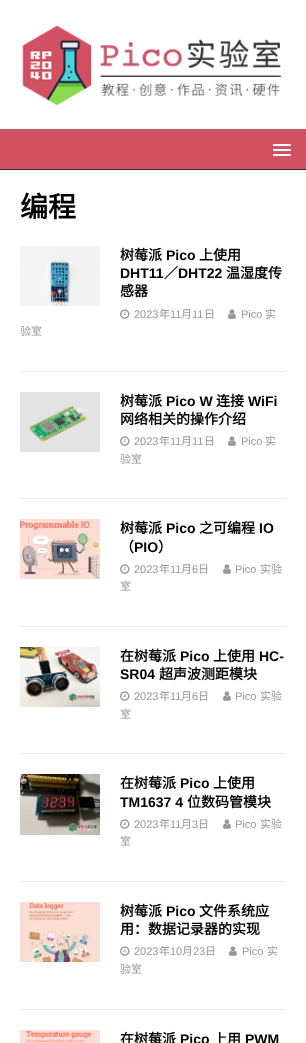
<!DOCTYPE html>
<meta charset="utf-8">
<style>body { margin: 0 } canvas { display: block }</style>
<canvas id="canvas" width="306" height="1043"></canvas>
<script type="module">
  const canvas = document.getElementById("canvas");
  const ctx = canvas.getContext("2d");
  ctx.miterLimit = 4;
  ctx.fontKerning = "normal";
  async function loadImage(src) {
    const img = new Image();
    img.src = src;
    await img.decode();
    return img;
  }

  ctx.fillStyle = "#ffffff";
  ctx.fillRect(0, 0, 306, 1043);
  ctx.drawImage(await loadImage("img1.png"), 22, 25, 260, 81);
  ctx.fillStyle = "#d15062";
  ctx.fillRect(0, 129, 306, 40);
  ctx.fillStyle = "#2a2a2a";
  ctx.fillRect(0, 169, 306, 1);
  ctx.fillStyle = "#ffffff";
  ctx.beginPath();
  ctx.roundRect(273, 144, 18, 2, 1);
  ctx.fill();
  ctx.beginPath();
  ctx.roundRect(273, 149, 18, 2, 1);
  ctx.fill();
  ctx.beginPath();
  ctx.roundRect(273, 154, 18, 2, 1);
  ctx.fill();
  ctx.font = "bold 28px Noto Sans CJK SC";
  ctx.fillStyle = "#000000";
  ctx.fillText("编程", 20, 217);
  ctx.fillStyle = "#ebebeb";
  ctx.fillRect(20, 371, 266, 1);
  ctx.drawImage(await loadImage("img2.png"), 20, 246, 80, 60);
  ctx.font = "bold 14px Noto Sans CJK SC";
  ctx.fillStyle = "#000000";
  ctx.fillText("树莓派", 120, 260);
  ctx.font = "bold 14px Liberation Sans";
  ctx.fillText("Pico", 166, 260);
  ctx.font = "bold 14px Noto Sans CJK SC";
  ctx.fillText("上使用", 199, 260);
  ctx.font = "bold 14px Liberation Sans";
  ctx.fillText("DHT11", 120, 278);
  ctx.font = "bold 14px Noto Sans CJK SC";
  ctx.fillText("／", 164, 278);
  ctx.font = "bold 14px Liberation Sans";
  ctx.fillText("DHT22", 178, 278);
  ctx.font = "bold 14px Noto Sans CJK SC";
  ctx.fillText("温湿度传", 226, 278);
  ctx.fillText("感器", 120, 296);
  ctx.drawImage(await loadImage("img3.png"), 228, 309, 8, 10);
  ctx.font = "11px Liberation Sans";
  ctx.fillStyle = "#979797";
  ctx.fillText("Pico", 241, 318);
  ctx.font = "11px Noto Sans CJK SC";
  ctx.fillText("实", 265, 318);
  ctx.fillText("验室", 20, 335);
  ctx.drawImage(await loadImage("img4.png"), 120, 309, 10, 10);
  ctx.font = "11px Liberation Sans";
  ctx.fillText("2023", 134, 318);
  ctx.font = "11px Noto Sans CJK SC";
  ctx.fillText("年", 159, 318);
  ctx.font = "11px Liberation Sans";
  ctx.fillText("11", 170, 318);
  ctx.font = "11px Noto Sans CJK SC";
  ctx.fillText("月", 181, 318);
  ctx.font = "11px Liberation Sans";
  ctx.fillText("11", 192, 318);
  ctx.font = "11px Noto Sans CJK SC";
  ctx.fillText("日", 204, 318);
  ctx.fillStyle = "#ebebeb";
  ctx.fillRect(20, 498, 266, 1);
  ctx.drawImage(await loadImage("img5.png"), 20, 392, 80, 60);
  ctx.font = "bold 14px Noto Sans CJK SC";
  ctx.fillStyle = "#000000";
  ctx.fillText("树莓派", 120, 406);
  ctx.font = "bold 14px Liberation Sans";
  ctx.fillText("Pico W", 166, 406);
  ctx.font = "bold 14px Noto Sans CJK SC";
  ctx.fillText("连接", 216, 406);
  ctx.font = "bold 14px Liberation Sans";
  ctx.fillText("WiFi", 248, 406);
  ctx.font = "bold 14px Noto Sans CJK SC";
  ctx.fillText("网络相关的操作介绍", 120, 424);
  ctx.drawImage(await loadImage("img3.png"), 228, 436, 8, 10);
  ctx.font = "11px Liberation Sans";
  ctx.fillStyle = "#979797";
  ctx.fillText("Pico", 241, 445);
  ctx.font = "11px Noto Sans CJK SC";
  ctx.fillText("实", 265, 445);
  ctx.fillText("验室", 120, 463);
  ctx.drawImage(await loadImage("img4.png"), 120, 436, 10, 10);
  ctx.font = "11px Liberation Sans";
  ctx.fillText("2023", 134, 445);
  ctx.font = "11px Noto Sans CJK SC";
  ctx.fillText("年", 159, 445);
  ctx.font = "11px Liberation Sans";
  ctx.fillText("11", 170, 445);
  ctx.font = "11px Noto Sans CJK SC";
  ctx.fillText("月", 181, 445);
  ctx.font = "11px Liberation Sans";
  ctx.fillText("11", 192, 445);
  ctx.font = "11px Noto Sans CJK SC";
  ctx.fillText("日", 204, 445);
  ctx.fillStyle = "#ebebeb";
  ctx.fillRect(20, 626, 266, 1);
  ctx.drawImage(await loadImage("img6.png"), 20, 519, 80, 60);
  ctx.font = "bold 14px Noto Sans CJK SC";
  ctx.fillStyle = "#000000";
  ctx.fillText("树莓派", 120, 533);
  ctx.font = "bold 14px Liberation Sans";
  ctx.fillText("Pico", 166, 533);
  ctx.font = "bold 14px Noto Sans CJK SC";
  ctx.fillText("之可编程", 199, 533);
  ctx.font = "bold 14px Liberation Sans";
  ctx.fillText("IO", 259, 533);
  ctx.font = "bold 14px Noto Sans CJK SC";
  ctx.fillText("（", 120, 552);
  ctx.font = "bold 14px Liberation Sans";
  ctx.fillText("PIO", 134, 552);
  ctx.font = "bold 14px Noto Sans CJK SC";
  ctx.fillText("）", 158, 552);
  ctx.drawImage(await loadImage("img3.png"), 223, 564, 8, 10);
  ctx.font = "11px Liberation Sans";
  ctx.fillStyle = "#979797";
  ctx.fillText("Pico", 235, 573);
  ctx.font = "11px Noto Sans CJK SC";
  ctx.fillText("实验", 260, 573);
  ctx.fillText("室", 120, 590);
  ctx.drawImage(await loadImage("img4.png"), 120, 564, 10, 10);
  ctx.font = "11px Liberation Sans";
  ctx.fillText("2023", 134, 573);
  ctx.font = "11px Noto Sans CJK SC";
  ctx.fillText("年", 159, 573);
  ctx.font = "11px Liberation Sans";
  ctx.fillText("11", 170, 573);
  ctx.font = "11px Noto Sans CJK SC";
  ctx.fillText("月", 181, 573);
  ctx.font = "11px Liberation Sans";
  ctx.fillText("6", 192, 573);
  ctx.font = "11px Noto Sans CJK SC";
  ctx.fillText("日", 198, 573);
  ctx.fillStyle = "#ebebeb";
  ctx.fillRect(20, 753, 266, 1);
  ctx.drawImage(await loadImage("img7.png"), 20, 647, 80, 60);
  ctx.font = "bold 14px Noto Sans CJK SC";
  ctx.fillStyle = "#000000";
  ctx.fillText("在树莓派", 120, 661);
  ctx.font = "bold 14px Liberation Sans";
  ctx.fillText("Pico", 180, 661);
  ctx.font = "bold 14px Noto Sans CJK SC";
  ctx.fillText("上使用", 213, 661);
  ctx.font = "bold 14px Liberation Sans";
  ctx.fillText("HC-", 259, 661);
  ctx.fillText("SR04", 120, 679);
  ctx.font = "bold 14px Noto Sans CJK SC";
  ctx.fillText("超声波测距模块", 159, 679);
  ctx.drawImage(await loadImage("img3.png"), 223, 691, 8, 10);
  ctx.font = "11px Liberation Sans";
  ctx.fillStyle = "#979797";
  ctx.fillText("Pico", 235, 700);
  ctx.font = "11px Noto Sans CJK SC";
  ctx.fillText("实验", 260, 700);
  ctx.fillText("室", 120, 718);
  ctx.drawImage(await loadImage("img4.png"), 120, 691, 10, 10);
  ctx.font = "11px Liberation Sans";
  ctx.fillText("2023", 134, 700);
  ctx.font = "11px Noto Sans CJK SC";
  ctx.fillText("年", 159, 700);
  ctx.font = "11px Liberation Sans";
  ctx.fillText("11", 170, 700);
  ctx.font = "11px Noto Sans CJK SC";
  ctx.fillText("月", 181, 700);
  ctx.font = "11px Liberation Sans";
  ctx.fillText("6", 192, 700);
  ctx.font = "11px Noto Sans CJK SC";
  ctx.fillText("日", 198, 700);
  ctx.fillStyle = "#ebebeb";
  ctx.fillRect(20, 881, 266, 1);
  ctx.drawImage(await loadImage("img8.png"), 20, 774, 80, 61);
  ctx.font = "bold 14px Noto Sans CJK SC";
  ctx.fillStyle = "#000000";
  ctx.fillText("在树莓派", 120, 788);
  ctx.font = "bold 14px Liberation Sans";
  ctx.fillText("Pico", 180, 788);
  ctx.font = "bold 14px Noto Sans CJK SC";
  ctx.fillText("上使用", 213, 788);
  ctx.font = "bold 14px Liberation Sans";
  ctx.fillText("TM1637 4", 120, 807);
  ctx.font = "bold 14px Noto Sans CJK SC";
  ctx.fillText("位数码管模块", 187, 807);
  ctx.drawImage(await loadImage("img3.png"), 223, 819, 8, 10);
  ctx.font = "11px Liberation Sans";
  ctx.fillStyle = "#979797";
  ctx.fillText("Pico", 235, 828);
  ctx.font = "11px Noto Sans CJK SC";
  ctx.fillText("实验", 260, 828);
  ctx.fillText("室", 120, 845);
  ctx.drawImage(await loadImage("img4.png"), 120, 819, 10, 10);
  ctx.font = "11px Liberation Sans";
  ctx.fillText("2023", 134, 828);
  ctx.font = "11px Noto Sans CJK SC";
  ctx.fillText("年", 159, 828);
  ctx.font = "11px Liberation Sans";
  ctx.fillText("11", 170, 828);
  ctx.font = "11px Noto Sans CJK SC";
  ctx.fillText("月", 181, 828);
  ctx.font = "11px Liberation Sans";
  ctx.fillText("3", 192, 828);
  ctx.font = "11px Noto Sans CJK SC";
  ctx.fillText("日", 198, 828);
  ctx.fillStyle = "#ebebeb";
  ctx.fillRect(20, 1009, 266, 1);
  ctx.drawImage(await loadImage("img9.png"), 20, 902, 80, 60);
  ctx.font = "bold 14px Noto Sans CJK SC";
  ctx.fillStyle = "#000000";
  ctx.fillText("树莓派", 120, 916);
  ctx.font = "bold 14px Liberation Sans";
  ctx.fillText("Pico", 166, 916);
  ctx.font = "bold 14px Noto Sans CJK SC";
  ctx.fillText("文件系统应", 199, 916);
  ctx.fillText("用：数据记录器的实现", 120, 934);
  ctx.drawImage(await loadImage("img3.png"), 229, 946, 8, 10);
  ctx.font = "11px Liberation Sans";
  ctx.fillStyle = "#979797";
  ctx.fillText("Pico", 242, 955);
  ctx.font = "11px Noto Sans CJK SC";
  ctx.fillText("实", 267, 955);
  ctx.fillText("验室", 120, 973);
  ctx.drawImage(await loadImage("img4.png"), 120, 946, 10, 10);
  ctx.font = "11px Liberation Sans";
  ctx.fillText("2023", 134, 955);
  ctx.font = "11px Noto Sans CJK SC";
  ctx.fillText("年", 159, 955);
  ctx.font = "11px Liberation Sans";
  ctx.fillText("10", 170, 955);
  ctx.font = "11px Noto Sans CJK SC";
  ctx.fillText("月", 182, 955);
  ctx.font = "11px Liberation Sans";
  ctx.fillText("23", 193, 955);
  ctx.font = "11px Noto Sans CJK SC";
  ctx.fillText("日", 205, 955);
  ctx.drawImage(await loadImage("img10.png"), 20, 1030, 80, 13);
  ctx.font = "bold 14px Noto Sans CJK SC";
  ctx.fillStyle = "#000000";
  ctx.fillText("在树莓派", 120, 1044);
  ctx.font = "bold 14px Liberation Sans";
  ctx.fillText("Pico", 180, 1044);
  ctx.font = "bold 14px Noto Sans CJK SC";
  ctx.fillText("上用", 213, 1044);
  ctx.font = "bold 14px Liberation Sans";
  ctx.fillText("PWM", 245, 1044);
</script>
